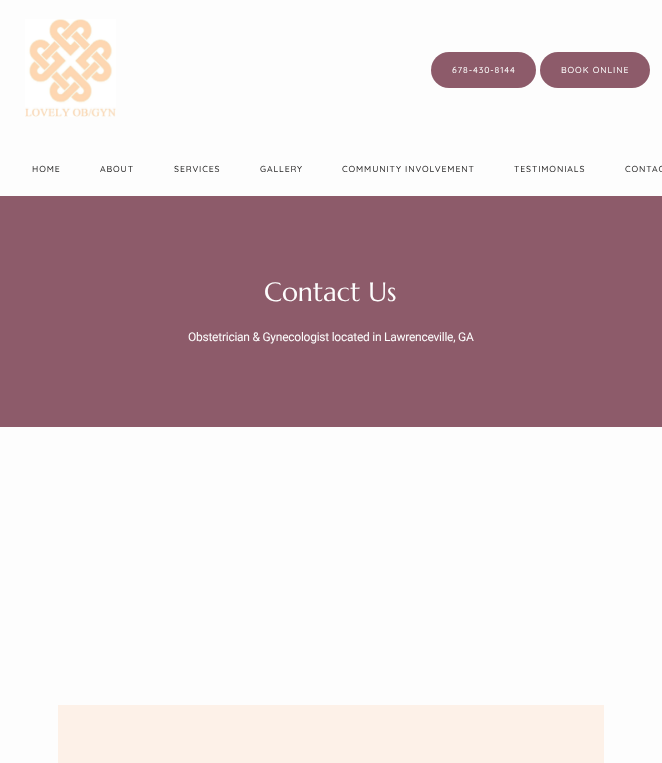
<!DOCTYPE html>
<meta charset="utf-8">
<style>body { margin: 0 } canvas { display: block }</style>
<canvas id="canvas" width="662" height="763"></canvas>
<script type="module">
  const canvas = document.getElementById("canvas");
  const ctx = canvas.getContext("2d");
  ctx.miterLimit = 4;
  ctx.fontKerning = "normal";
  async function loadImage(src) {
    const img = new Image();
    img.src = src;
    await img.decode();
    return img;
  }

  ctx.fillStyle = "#8d5b6a";
  ctx.fillRect(0, 0, 662, 763);
  ctx.fillStyle = "#fdfdfd";
  ctx.fillRect(0, 0, 662, 196);
  ctx.drawImage(await loadImage("img1.png"), 25, 19, 91, 98);
  ctx.fillStyle = "#8d5b6a";
  ctx.beginPath();
  ctx.roundRect(431, 52, 105, 36, 18);
  ctx.fill();
  ctx.letterSpacing = "0.9px";
  ctx.font = "500 8.7px Quicksand";
  ctx.fillStyle = "#fdfdfd";
  ctx.fillText("678-430-8144", 452, 73);
  ctx.fillStyle = "#8d5b6a";
  ctx.beginPath();
  ctx.roundRect(540, 52, 110, 36, 18);
  ctx.fill();
  ctx.fillStyle = "#fdfdfd";
  ctx.fillText("BOOK ONLINE", 561, 73);
  ctx.fillStyle = "#292828";
  ctx.fillText("HOME", 32, 172);
  ctx.fillText("ABOUT", 100, 172);
  ctx.fillText("SERVICES", 174, 172);
  ctx.fillText("GALLERY", 260, 172);
  ctx.fillText("COMMUNITY INVOLVEMENT", 342, 172);
  ctx.fillText("TESTIMONIALS", 514, 172);
  ctx.fillText("CONTAC", 625, 172);
  ctx.letterSpacing = "0px";
  ctx.font = "26.5px Marcellus";
  ctx.fillStyle = "#fdfdfd";
  ctx.fillText("Contact Us", 264, 301);
  ctx.letterSpacing = "-0.25px";
  ctx.font = "12px Roboto";
  ctx.fillText("Obstetrician & Gynecologist located in Lawrenceville, GA", 188, 341);
  ctx.fillRect(0, 427, 662, 336);
  ctx.fillStyle = "#fdf1e8";
  ctx.fillRect(58, 705, 546, 58);
</script>
